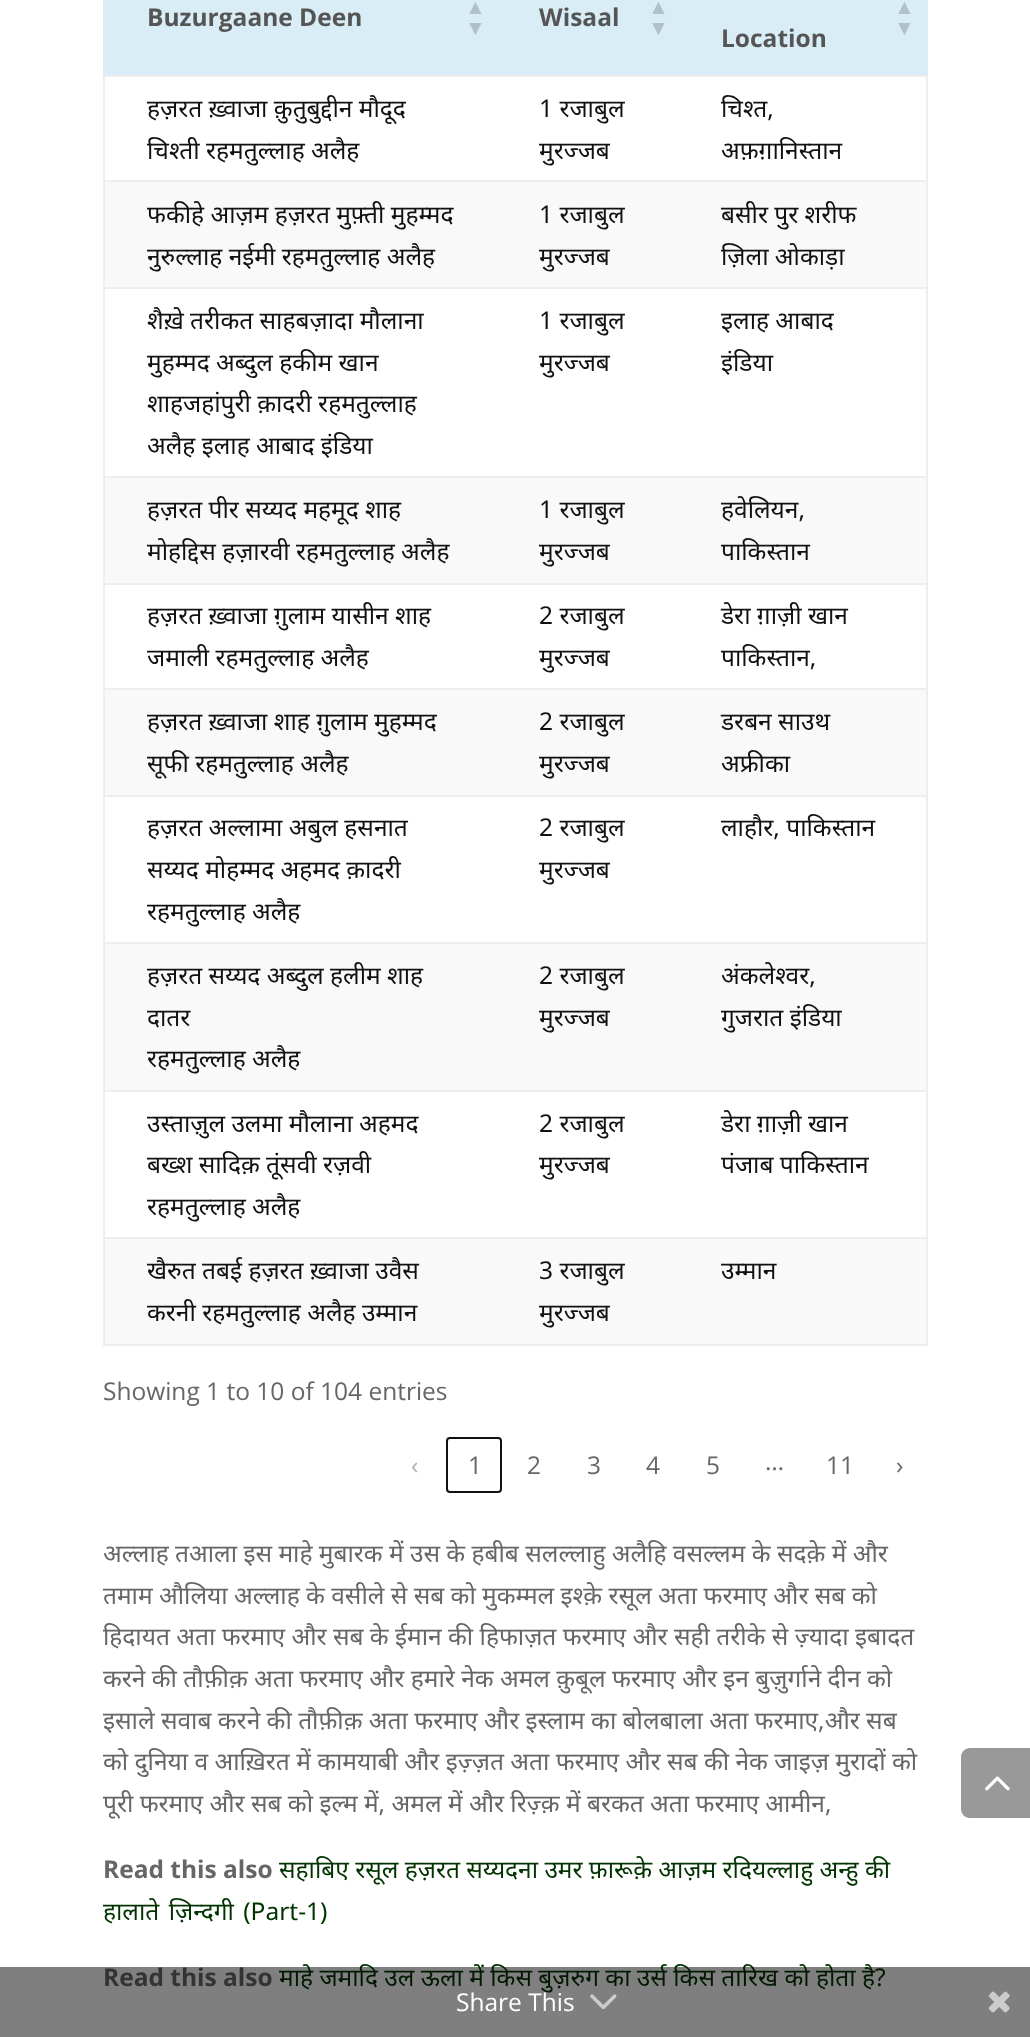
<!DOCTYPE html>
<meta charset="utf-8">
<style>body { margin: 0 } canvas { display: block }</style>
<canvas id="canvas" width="1030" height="2037"></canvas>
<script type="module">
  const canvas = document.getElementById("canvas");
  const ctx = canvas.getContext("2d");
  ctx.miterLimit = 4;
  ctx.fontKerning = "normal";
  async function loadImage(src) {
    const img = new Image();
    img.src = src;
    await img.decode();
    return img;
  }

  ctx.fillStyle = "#ffffff";
  ctx.fillRect(0, 0, 1030, 2037);
  ctx.fillStyle = "#eeeeee";
  ctx.fillRect(926, 77, 2, 1269);
  ctx.fillRect(103, 1344, 825, 2);
  ctx.fillRect(103, 77, 2, 1269);
  ctx.fillStyle = "#d9edf7";
  ctx.fillRect(103, 0, 825, 75);
  ctx.font = "bold 24.5px Open Sans";
  ctx.fillStyle = "#555555";
  ctx.fillText("Buzurgaane Deen", 147, 26);
  ctx.font = "bold 21px Liberation Sans";
  ctx.fillStyle = "#b1c1c9";
  ctx.fillText("▲", 465, 14);
  ctx.fillText("▼", 465, 35);
  ctx.font = "bold 24.5px Open Sans";
  ctx.fillStyle = "#555555";
  ctx.fillText("Wisaal", 539, 26);
  ctx.font = "bold 21px Liberation Sans";
  ctx.fillStyle = "#b1c1c9";
  ctx.fillText("▲", 648, 14);
  ctx.fillText("▼", 648, 35);
  ctx.fillText("▲", 894, 14);
  ctx.fillText("▼", 894, 35);
  ctx.font = "bold 24.5px Open Sans";
  ctx.fillStyle = "#555555";
  ctx.fillText("Location", 721, 47);
  ctx.font = "24.5px Noto Sans";
  ctx.fillStyle = "#111111";
  ctx.fillText("हज़रत ख़्वाजा क़ुतुबुद्दीन मौदूद", 147, 117);
  ctx.fillText("चिश्ती रहमतुल्लाह अलैह", 147, 159);
  ctx.fillText("1 रजाबुल", 539, 117);
  ctx.fillText("मुरज्जब", 539, 159);
  ctx.fillStyle = "#eeeeee";
  ctx.fillRect(103, 75, 825, 2);
  ctx.fillStyle = "#111111";
  ctx.fillText("चिश्त,", 721, 117);
  ctx.fillText("अफ़ग़ानिस्तान", 721, 159);
  ctx.fillStyle = "#f9f9f9";
  ctx.fillRect(105, 182, 821, 105);
  ctx.fillStyle = "#111111";
  ctx.fillText("फकीहे आज़म हज़रत मुफ़्ती मुहम्मद", 147, 223);
  ctx.fillText("नुरुल्लाह नईमी रहमतुल्लाह अलैह", 147, 265);
  ctx.fillText("1 रजाबुल", 539, 223);
  ctx.fillText("मुरज्जब", 539, 265);
  ctx.fillStyle = "#eeeeee";
  ctx.fillRect(103, 180, 825, 2);
  ctx.fillStyle = "#111111";
  ctx.fillText("बसीर पुर शरीफ", 721, 223);
  ctx.fillText("ज़िला ओकाड़ा", 721, 265);
  ctx.fillText("शैख़े तरीकत साहबज़ादा मौलाना", 147, 329);
  ctx.fillText("मुहम्मद अब्दुल हकीम खान", 147, 371);
  ctx.fillText("शाहजहांपुरी क़ादरी रहमतुल्लाह", 147, 412);
  ctx.fillText("अलैह इलाह आबाद इंडिया", 147, 454);
  ctx.fillText("1 रजाबुल", 539, 329);
  ctx.fillText("मुरज्जब", 539, 371);
  ctx.fillStyle = "#eeeeee";
  ctx.fillRect(103, 287, 825, 2);
  ctx.fillStyle = "#111111";
  ctx.fillText("इलाह आबाद", 721, 329);
  ctx.fillText("इंडिया", 721, 371);
  ctx.fillStyle = "#f9f9f9";
  ctx.fillRect(105, 478, 821, 105);
  ctx.fillStyle = "#111111";
  ctx.fillText("हज़रत पीर सय्यद महमूद शाह", 147, 518);
  ctx.fillText("मोहद्दिस हज़ारवी रहमतुल्लाह अलैह", 147, 560);
  ctx.fillText("1 रजाबुल", 539, 518);
  ctx.fillText("मुरज्जब", 539, 560);
  ctx.fillStyle = "#eeeeee";
  ctx.fillRect(103, 476, 825, 2);
  ctx.fillStyle = "#111111";
  ctx.fillText("हवेलियन,", 721, 518);
  ctx.fillText("पाकिस्तान", 721, 560);
  ctx.fillText("हज़रत ख़्वाजा ग़ुलाम यासीन शाह", 147, 624);
  ctx.fillText("जमाली रहमतुल्लाह अलैह", 147, 666);
  ctx.fillText("2 रजाबुल", 539, 624);
  ctx.fillText("मुरज्जब", 539, 666);
  ctx.fillStyle = "#eeeeee";
  ctx.fillRect(103, 583, 825, 2);
  ctx.fillStyle = "#111111";
  ctx.fillText("डेरा ग़ाज़ी खान", 721, 624);
  ctx.fillText("पाकिस्तान,", 721, 666);
  ctx.fillStyle = "#f9f9f9";
  ctx.fillRect(105, 690, 821, 105);
  ctx.fillStyle = "#111111";
  ctx.fillText("हज़रत ख़्वाजा शाह ग़ुलाम मुहम्मद", 147, 730);
  ctx.fillText("सूफी रहमतुल्लाह अलैह", 147, 772);
  ctx.fillText("2 रजाबुल", 539, 730);
  ctx.fillText("मुरज्जब", 539, 772);
  ctx.fillStyle = "#eeeeee";
  ctx.fillRect(103, 688, 825, 2);
  ctx.fillStyle = "#111111";
  ctx.fillText("डरबन साउथ", 721, 730);
  ctx.fillText("अफ्रीका", 721, 772);
  ctx.fillText("हज़रत अल्लामा अबुल हसनात", 147, 836);
  ctx.fillText("सय्यद मोहम्मद अहमद क़ादरी", 147, 878);
  ctx.fillText("रहमतुल्लाह अलैह", 147, 920);
  ctx.fillText("2 रजाबुल", 539, 836);
  ctx.fillText("मुरज्जब", 539, 878);
  ctx.fillStyle = "#eeeeee";
  ctx.fillRect(103, 795, 825, 2);
  ctx.fillStyle = "#111111";
  ctx.fillText("लाहौर, पाकिस्तान", 721, 836);
  ctx.fillStyle = "#f9f9f9";
  ctx.fillRect(105, 944, 821, 146);
  ctx.fillStyle = "#111111";
  ctx.fillText("हज़रत सय्यद अब्दुल हलीम शाह", 147, 984);
  ctx.fillText("दातर", 147, 1026);
  ctx.fillText("रहमतुल्लाह अलैह", 147, 1067);
  ctx.fillText("2 रजाबुल", 539, 984);
  ctx.fillText("मुरज्जब", 539, 1026);
  ctx.fillStyle = "#eeeeee";
  ctx.fillRect(103, 942, 825, 2);
  ctx.fillStyle = "#111111";
  ctx.fillText("अंकलेश्वर,", 721, 984);
  ctx.fillText("गुजरात इंडिया", 721, 1026);
  ctx.fillText("उस्ताज़ुल उलमा मौलाना अहमद", 147, 1132);
  ctx.fillText("बख्श सादिक़ तूंसवी रज़वी", 147, 1173);
  ctx.fillText("रहमतुल्लाह अलैह", 147, 1215);
  ctx.fillText("2 रजाबुल", 539, 1132);
  ctx.fillText("मुरज्जब", 539, 1173);
  ctx.fillStyle = "#eeeeee";
  ctx.fillRect(103, 1090, 825, 2);
  ctx.fillStyle = "#111111";
  ctx.fillText("डेरा ग़ाज़ी खान", 721, 1132);
  ctx.fillText("पंजाब पाकिस्तान", 721, 1173);
  ctx.fillStyle = "#f9f9f9";
  ctx.fillRect(105, 1239, 821, 105);
  ctx.fillStyle = "#111111";
  ctx.fillText("खैरुत तबई हज़रत ख़्वाजा उवैस", 147, 1279);
  ctx.fillText("करनी रहमतुल्लाह अलैह उम्मान", 147, 1321);
  ctx.fillText("3 रजाबुल", 539, 1279);
  ctx.fillText("मुरज्जब", 539, 1321);
  ctx.fillStyle = "#eeeeee";
  ctx.fillRect(103, 1237, 825, 2);
  ctx.fillStyle = "#111111";
  ctx.fillText("उम्मान", 721, 1279);
  ctx.font = "24.5px Open Sans";
  ctx.fillStyle = "#666666";
  ctx.fillText("Showing 1 to 10 of 104 entries", 103, 1400);
  ctx.fillStyle = "#b3b3b3";
  ctx.fillText("‹", 411, 1474);
  ctx.beginPath();
  ctx.roundRect(447, 1438, 54, 54, 3);
  ctx.strokeStyle = "#111111";
  ctx.lineWidth = 2;
  ctx.stroke();
  ctx.fillStyle = "#666666";
  ctx.fillText("1", 468, 1474);
  ctx.fillText("2", 527, 1474);
  ctx.fillText("3", 587, 1474);
  ctx.fillText("4", 646, 1474);
  ctx.fillText("5", 706, 1474);
  ctx.fillText("…", 765, 1470);
  ctx.fillText("11", 826, 1474);
  ctx.fillText("›", 896, 1474);
  ctx.font = "24.5px Noto Sans";
  ctx.fillText("अल्लाह तआला इस माहे मुबारक में उस के हबीब सलल्लाहु अलैहि वसल्लम के सदक़े में और", 103, 1562);
  ctx.fillText("तमाम औलिया अल्लाह के वसीले से सब को मुकम्मल इश्क़े रसूल अता फरमाए और सब को", 103, 1604);
  ctx.fillText("हिदायत अता फरमाए और सब के ईमान की हिफाज़त फरमाए और सही तरीके से ज़्यादा इबादत", 103, 1645);
  ctx.fillText("करने की तौफ़ीक़ अता फरमाए और हमारे नेक अमल क़ुबूल फरमाए और इन बुज़ुर्गाने दीन को", 103, 1687);
  ctx.fillText("इसाले सवाब करने की तौफ़ीक़ अता फरमाए और इस्लाम का बोलबाला अता फरमाए,और सब", 103, 1729);
  ctx.fillText("को दुनिया व आख़िरत में कामयाबी और इज़्ज़त अता फरमाए और सब की नेक जाइज़ मुरादों को", 103, 1770);
  ctx.fillText("पूरी फरमाए और सब को इल्म में, अमल में और रिज़्क़ में बरकत अता फरमाए आमीन,", 103, 1812);
  ctx.font = "bold 24.5px Open Sans";
  ctx.fillText("Read this also", 103, 1878);
  ctx.font = "24.5px Noto Sans";
  ctx.fillStyle = "#003300";
  ctx.fillText("सहाबिए रसूल हज़रत सय्यदना उमर फ़ारूक़े आज़म रदियल्लाहु अन्हु की", 279, 1878);
  ctx.wordSpacing = "3px";
  ctx.fillText("हालाते ज़िन्दगी (Part-1)", 103, 1920);
  ctx.wordSpacing = "0px";
  ctx.font = "bold 24.5px Open Sans";
  ctx.fillStyle = "#666666";
  ctx.fillText("Read this also", 103, 1986);
  ctx.font = "24.5px Noto Sans";
  ctx.fillStyle = "#003300";
  ctx.fillText("माहे जमादि उल ऊला में किस बुज़रुग का उर्स किस तारिख को होता है?", 279, 1986);
  ctx.fillStyle = "#999999";
  ctx.beginPath();
  ctx.moveTo(970, 1748);
  ctx.lineTo(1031, 1748);
  ctx.lineTo(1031, 1818);
  ctx.lineTo(970, 1818);
  ctx.bezierCurveTo(965, 1818, 961, 1814, 961, 1809);
  ctx.lineTo(961, 1757);
  ctx.bezierCurveTo(961, 1752, 965, 1748, 970, 1748);
  ctx.closePath();
  ctx.fill();
  ctx.drawImage(await loadImage("img1.png"), 985, 1776, 25, 15);
  ctx.fillStyle = "rgba(0, 0, 0, 0.5)";
  ctx.fillRect(0, 1967, 1030, 70);
  ctx.font = "24.5px Open Sans";
  ctx.fillStyle = "#ffffff";
  ctx.fillText("Share This", 456, 2011);
  ctx.drawImage(await loadImage("img2.png"), 590, 1994, 27, 16);
  ctx.drawImage(await loadImage("img3.png"), 988, 1991, 22, 22);
</script>
